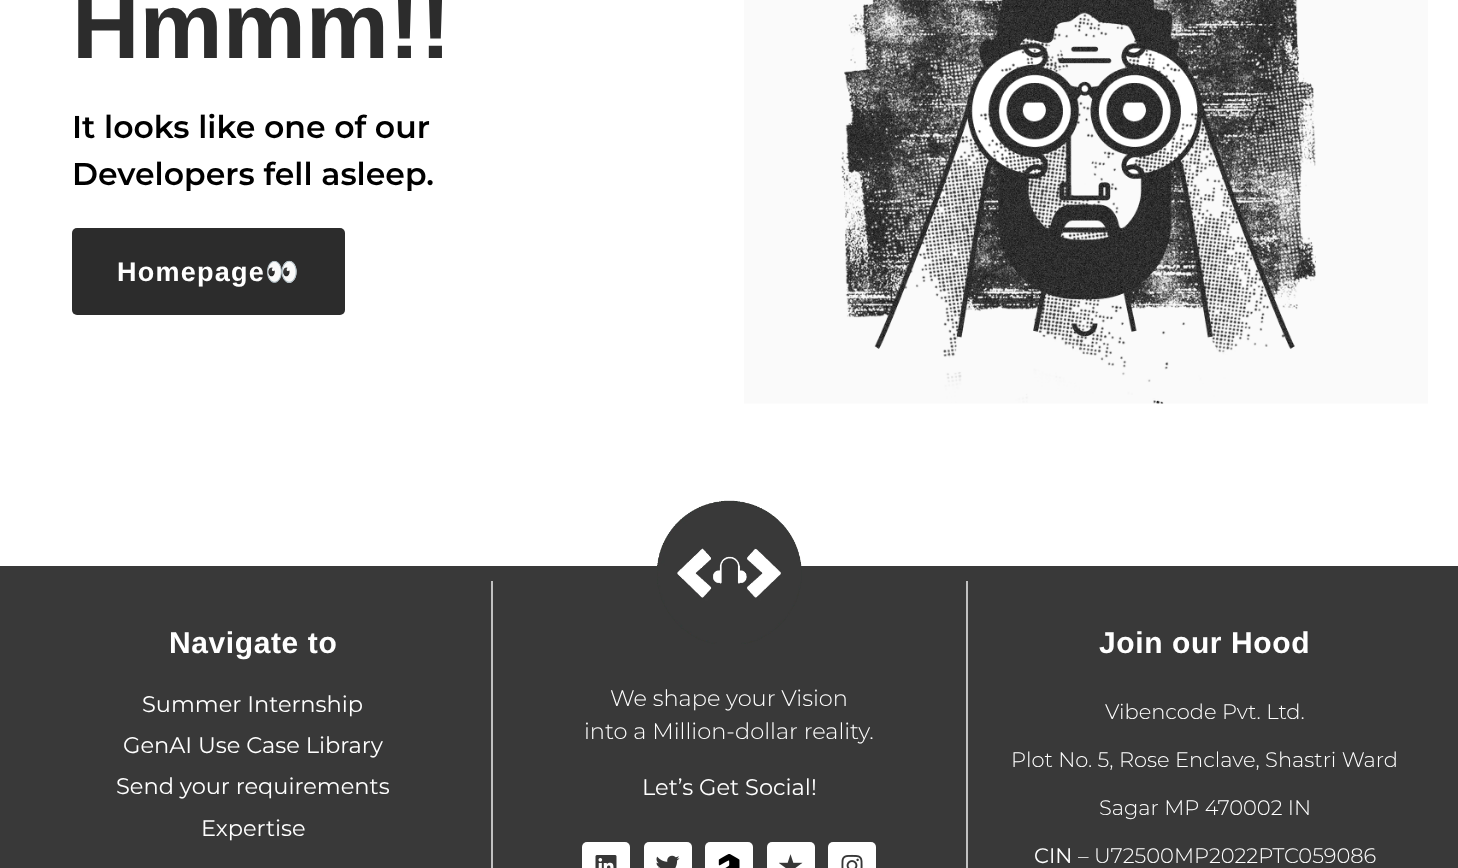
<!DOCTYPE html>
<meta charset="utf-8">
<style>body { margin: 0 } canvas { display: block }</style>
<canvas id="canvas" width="1458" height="868"></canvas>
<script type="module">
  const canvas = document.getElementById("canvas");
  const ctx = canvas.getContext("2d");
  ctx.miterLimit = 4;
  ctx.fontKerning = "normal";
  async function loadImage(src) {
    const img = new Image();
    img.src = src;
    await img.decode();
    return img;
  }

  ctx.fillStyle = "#ffffff";
  ctx.fillRect(0, 0, 1458, 868);
  ctx.font = "bold 93.5px Liberation Sans";
  ctx.fillStyle = "#2c2c2c";
  ctx.fillText("Hmmm!!", 72, 58);
  ctx.font = "600 31.5px Montserrat";
  ctx.fillStyle = "#000000";
  ctx.fillText("It looks like one of our", 72, 138);
  ctx.fillText("Developers fell asleep.", 72, 185);
  ctx.fillStyle = "#2c2c2c";
  ctx.beginPath();
  ctx.roundRect(72, 228, 273, 87, 5);
  ctx.fill();
  ctx.letterSpacing = "1.25px";
  ctx.font = "bold 27px Liberation Sans";
  ctx.fillStyle = "#ffffff";
  ctx.fillText("Homepage", 117, 281);
  ctx.font = "bold 27px Noto Color Emoji";
  ctx.fillText("👀", 265, 281);
  ctx.drawImage(await loadImage("img1.png"), 744, 0, 684, 404);
  ctx.fillStyle = "#393939";
  ctx.fillRect(0, 566, 1458, 302);
  ctx.letterSpacing = "0.6px";
  ctx.font = "bold 30px Liberation Sans";
  ctx.fillStyle = "#ffffff";
  ctx.fillText("Navigate to", 169, 653);
  ctx.letterSpacing = "0px";
  ctx.font = "22.5px Montserrat";
  ctx.fillText("Summer Internship", 142, 712);
  ctx.fillText("GenAI Use Case Library", 123, 753);
  ctx.fillText("Send your requirements", 116, 794);
  ctx.fillText("Expertise", 201, 836);
  ctx.fillStyle = "#c1c1c1";
  ctx.fillRect(966, 581, 2, 287);
  ctx.fillRect(491, 581, 2, 287);
  ctx.drawImage(await loadImage("img2.png"), 657, 500, 145, 144);
  ctx.font = "300 22.5px Montserrat";
  ctx.fillStyle = "#ffffff";
  ctx.fillText("We shape your Vision", 610, 706);
  ctx.fillText("into a Million-dollar reality.", 584, 739);
  ctx.font = "22.5px Montserrat";
  ctx.fillText("Let’s Get Social!", 642, 795);
  ctx.beginPath();
  ctx.roundRect(582, 842, 48, 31, 5);
  ctx.fill();
  ctx.drawImage(await loadImage("img3.png"), 595, 855, 22, 13);
  ctx.beginPath();
  ctx.roundRect(644, 842, 48, 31, 5);
  ctx.fill();
  ctx.drawImage(await loadImage("img4.png"), 656, 855, 24, 13);
  ctx.beginPath();
  ctx.roundRect(705, 842, 48, 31, 5);
  ctx.fill();
  ctx.drawImage(await loadImage("img5.png"), 718, 854, 22, 14);
  ctx.beginPath();
  ctx.roundRect(767, 842, 48, 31, 5);
  ctx.fill();
  ctx.drawImage(await loadImage("img6.png"), 779, 854, 24, 14);
  ctx.beginPath();
  ctx.roundRect(828, 842, 48, 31, 5);
  ctx.fill();
  ctx.drawImage(await loadImage("img7.png"), 841, 854, 22, 14);
  ctx.letterSpacing = "0.6px";
  ctx.font = "bold 30px Liberation Sans";
  ctx.fillText("Join our Hood", 1099, 653);
  ctx.letterSpacing = "0px";
  ctx.font = "300 21px Montserrat";
  ctx.fillText("Vibencode Pvt. Ltd.", 1105, 719);
  ctx.fillText("Plot No. 5, Rose Enclave, Shastri Ward", 1011, 767);
  ctx.fillText("Sagar MP 470002 IN", 1099, 815);
  ctx.font = "21px Montserrat";
  ctx.fillText("CIN", 1034, 863);
  ctx.font = "300 21px Montserrat";
  ctx.fillText("– U72500MP2022PTC059086", 1078, 863);
</script>
